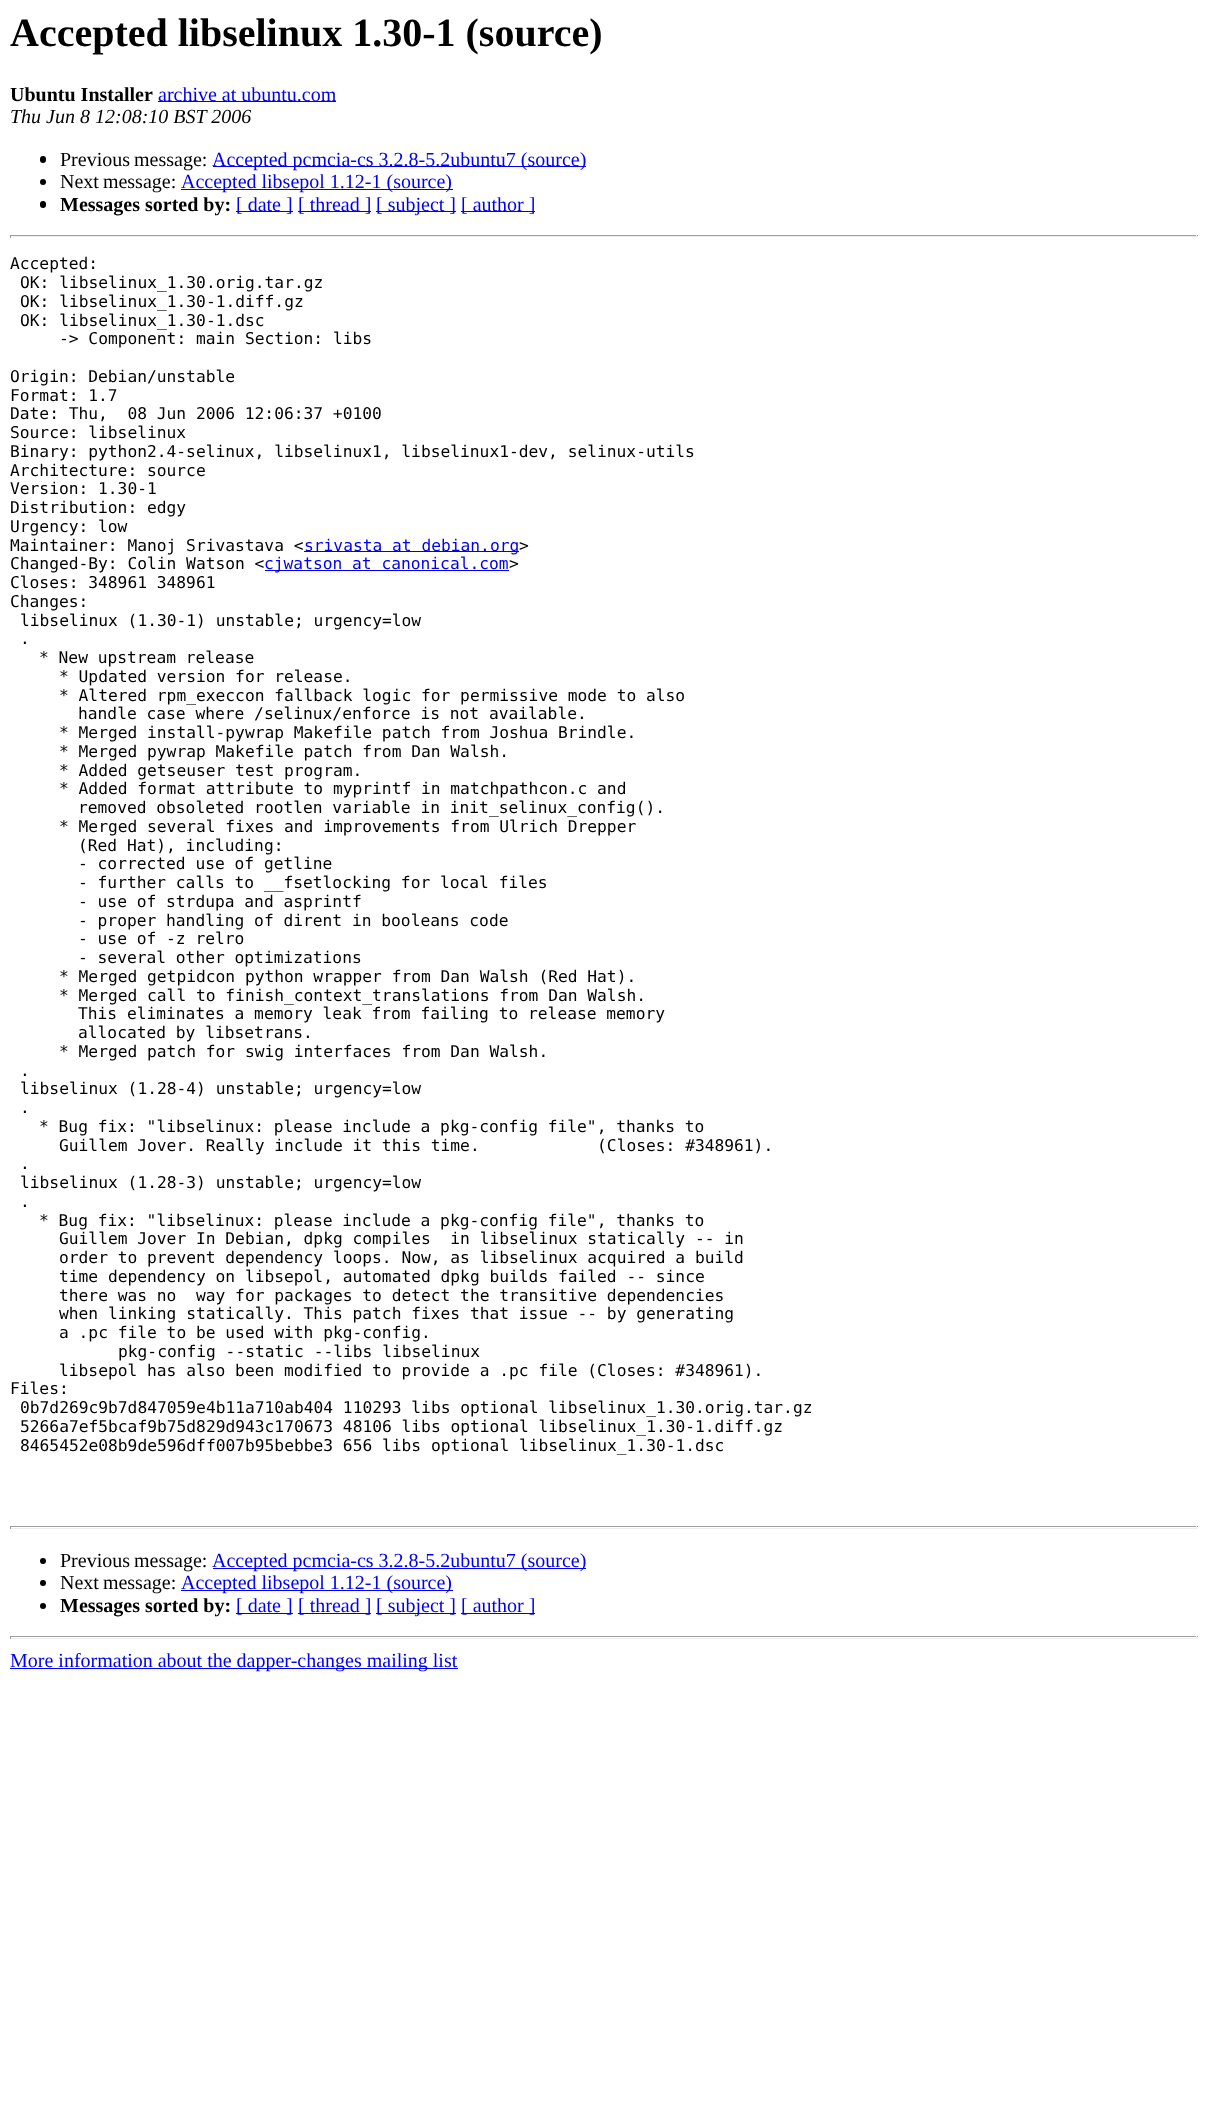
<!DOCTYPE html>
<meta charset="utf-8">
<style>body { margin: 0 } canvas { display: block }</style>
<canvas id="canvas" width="1207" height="2107"></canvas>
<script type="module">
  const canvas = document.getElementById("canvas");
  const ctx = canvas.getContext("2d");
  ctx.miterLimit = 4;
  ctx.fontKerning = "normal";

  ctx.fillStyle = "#ffffff";
  ctx.fillRect(0, 0, 1207, 2107);
  ctx.font = "bold 40px Liberation Serif";
  ctx.fillStyle = "#000000";
  ctx.fillText("Accepted libselinux 1.30-1 (source)", 10, 46);
  ctx.font = "bold 20px Liberation Serif";
  ctx.fillText("Ubuntu Installer", 10, 101);
  ctx.fillStyle = "#0000ee";
  ctx.fillRect(158, 101, 178, 1);
  ctx.font = "20px Liberation Serif";
  ctx.fillText("archive at ubuntu.com", 158, 101);
  ctx.font = "italic 20px Liberation Serif";
  ctx.fillStyle = "#000000";
  ctx.fillText("Thu Jun 8 12:08:10 BST 2006", 10, 123);
  ctx.beginPath();
  ctx.roundRect(40, 156, 6, 7, 3);
  ctx.fill();
  ctx.wordSpacing = "-1px";
  ctx.font = "20px Liberation Serif";
  ctx.fillText("Previous message:", 60, 166);
  ctx.fillStyle = "#0000ee";
  ctx.fillRect(213, 166, 373, 1);
  ctx.wordSpacing = "0px";
  ctx.fillText("Accepted pcmcia-cs 3.2.8-5.2ubuntu7 (source)", 212, 166);
  ctx.fillStyle = "#000000";
  ctx.beginPath();
  ctx.arc(43, 182, 3, 0, Math.PI * 2);
  ctx.fill();
  ctx.wordSpacing = "-1px";
  ctx.fillText("Next message:", 60, 188);
  ctx.fillStyle = "#0000ee";
  ctx.fillRect(181, 189, 272, 1);
  ctx.wordSpacing = "0px";
  ctx.fillText("Accepted libsepol 1.12-1 (source)", 181, 188);
  ctx.fillStyle = "#000000";
  ctx.beginPath();
  ctx.roundRect(40, 201, 6, 7, 3);
  ctx.fill();
  ctx.font = "bold 20px Liberation Serif";
  ctx.fillText("Messages sorted by:", 60, 211);
  ctx.fillStyle = "#0000ee";
  ctx.fillRect(236, 211, 57, 1);
  ctx.font = "20px Liberation Serif";
  ctx.fillText("[ date ]", 236, 211);
  ctx.fillRect(298, 211, 73, 1);
  ctx.fillText("[ thread ]", 298, 211);
  ctx.fillRect(376, 211, 80, 1);
  ctx.fillText("[ subject ]", 376, 211);
  ctx.fillRect(461, 211, 74, 1);
  ctx.fillText("[ author ]", 461, 211);
  ctx.fillStyle = "#9f9f9f";
  ctx.fillRect(10, 235, 1188, 1);
  ctx.fillStyle = "#eeeeee";
  ctx.fillRect(1196, 235, 1, 3);
  ctx.fillRect(10, 236, 1188, 1);
  ctx.fillStyle = "#9f9f9f";
  ctx.fillRect(10, 235, 1, 3);
  ctx.font = "16.25px DejaVu Sans Mono";
  ctx.fillStyle = "#000000";
  ctx.fillText("Accepted:", 10, 269);
  ctx.fillText("OK: libselinux_1.30.orig.tar.gz", 20, 288);
  ctx.fillText("OK: libselinux_1.30-1.diff.gz", 20, 307);
  ctx.fillText("OK: libselinux_1.30-1.dsc", 20, 326);
  ctx.fillText("-> Component: main Section: libs", 59, 344);
  ctx.fillText("Origin: Debian/unstable", 10, 382);
  ctx.fillText("Format: 1.7", 10, 401);
  ctx.fillText("Date: Thu,  08 Jun 2006 12:06:37 +0100", 10, 419);
  ctx.fillText("Source: libselinux", 10, 438);
  ctx.fillText("Binary: python2.4-selinux, libselinux1, libselinux1-dev, selinux-utils", 10, 457);
  ctx.fillText("Architecture: source", 10, 476);
  ctx.fillText("Version: 1.30-1", 10, 494);
  ctx.fillText("Distribution: edgy", 10, 513);
  ctx.fillText("Urgency: low", 10, 532);
  ctx.fillText("Maintainer: Manoj Srivastava <", 10, 551);
  ctx.fillStyle = "#0000ee";
  ctx.fillRect(304, 551, 215, 1);
  ctx.fillText("srivasta at debian.org", 304, 551);
  ctx.fillStyle = "#000000";
  ctx.fillText(">", 519, 551);
  ctx.fillText("Changed-By: Colin Watson <", 10, 569);
  ctx.fillStyle = "#0000ee";
  ctx.fillRect(265, 570, 244, 1);
  ctx.fillText("cjwatson at canonical.com", 264, 569);
  ctx.fillStyle = "#000000";
  ctx.fillText(">", 509, 569);
  ctx.fillText("Closes: 348961 348961", 10, 588);
  ctx.fillText("Changes:", 10, 607);
  ctx.fillText("libselinux (1.30-1) unstable; urgency=low", 20, 626);
  ctx.fillText(".", 20, 644);
  ctx.fillText("* New upstream release", 39, 663);
  ctx.fillText("* Updated version for release.", 59, 682);
  ctx.fillText("* Altered rpm_execcon fallback logic for permissive mode to also", 59, 701);
  ctx.fillText("handle case where /selinux/enforce is not available.", 78, 719);
  ctx.fillText("* Merged install-pywrap Makefile patch from Joshua Brindle.", 59, 738);
  ctx.fillText("* Merged pywrap Makefile patch from Dan Walsh.", 59, 757);
  ctx.fillText("* Added getseuser test program.", 59, 776);
  ctx.fillText("* Added format attribute to myprintf in matchpathcon.c and", 59, 794);
  ctx.fillText("removed obsoleted rootlen variable in init_selinux_config().", 78, 813);
  ctx.fillText("* Merged several fixes and improvements from Ulrich Drepper", 59, 832);
  ctx.fillText("(Red Hat), including:", 78, 851);
  ctx.fillText("- corrected use of getline", 78, 869);
  ctx.fillText("- further calls to __fsetlocking for local files", 78, 888);
  ctx.fillText("- use of strdupa and asprintf", 78, 907);
  ctx.fillText("- proper handling of dirent in booleans code", 78, 926);
  ctx.fillText("- use of -z relro", 78, 944);
  ctx.fillText("- several other optimizations", 78, 963);
  ctx.fillText("* Merged getpidcon python wrapper from Dan Walsh (Red Hat).", 59, 982);
  ctx.fillText("* Merged call to finish_context_translations from Dan Walsh.", 59, 1001);
  ctx.fillText("This eliminates a memory leak from failing to release memory", 78, 1019);
  ctx.fillText("allocated by libsetrans.", 78, 1038);
  ctx.fillText("* Merged patch for swig interfaces from Dan Walsh.", 59, 1057);
  ctx.fillText(".", 20, 1076);
  ctx.fillText("libselinux (1.28-4) unstable; urgency=low", 20, 1094);
  ctx.fillText(".", 20, 1113);
  ctx.fillText("* Bug fix: \"libselinux: please include a pkg-config file\", thanks to", 39, 1132);
  ctx.fillText("Guillem Jover. Really include it this time.            (Closes: #348961).", 59, 1151);
  ctx.fillText(".", 20, 1169);
  ctx.fillText("libselinux (1.28-3) unstable; urgency=low", 20, 1188);
  ctx.fillText(".", 20, 1207);
  ctx.fillText("* Bug fix: \"libselinux: please include a pkg-config file\", thanks to", 39, 1226);
  ctx.fillText("Guillem Jover In Debian, dpkg compiles  in libselinux statically -- in", 59, 1244);
  ctx.fillText("order to prevent dependency loops. Now, as libselinux acquired a build", 59, 1263);
  ctx.fillText("time dependency on libsepol, automated dpkg builds failed -- since", 59, 1282);
  ctx.fillText("there was no  way for packages to detect the transitive dependencies", 59, 1301);
  ctx.fillText("when linking statically. This patch fixes that issue -- by generating", 59, 1319);
  ctx.fillText("a .pc file to be used with pkg-config.", 59, 1338);
  ctx.fillText("pkg-config --static --libs libselinux", 118, 1357);
  ctx.fillText("libsepol has also been modified to provide a .pc file (Closes: #348961).", 59, 1376);
  ctx.fillText("Files:", 10, 1394);
  ctx.fillText("0b7d269c9b7d847059e4b11a710ab404 110293 libs optional libselinux_1.30.orig.tar.gz", 20, 1413);
  ctx.fillText("5266a7ef5bcaf9b75d829d943c170673 48106 libs optional libselinux_1.30-1.diff.gz", 20, 1432);
  ctx.fillText("8465452e08b9de596dff007b95bebbe3 656 libs optional libselinux_1.30-1.dsc", 20, 1451);
  ctx.fillStyle = "#9f9f9f";
  ctx.fillRect(10, 1526, 1188, 1);
  ctx.fillStyle = "#eeeeee";
  ctx.fillRect(1196, 1526, 1, 3);
  ctx.fillRect(10, 1528, 1188, 1);
  ctx.fillStyle = "#9f9f9f";
  ctx.fillRect(10, 1526, 1, 3);
  ctx.fillStyle = "#000000";
  ctx.beginPath();
  ctx.arc(43, 1561, 3, 0, Math.PI * 2);
  ctx.fill();
  ctx.wordSpacing = "-1px";
  ctx.font = "20px Liberation Serif";
  ctx.fillText("Previous message:", 60, 1567);
  ctx.fillStyle = "#0000ee";
  ctx.fillRect(213, 1568, 373, 1);
  ctx.wordSpacing = "0px";
  ctx.fillText("Accepted pcmcia-cs 3.2.8-5.2ubuntu7 (source)", 212, 1567);
  ctx.fillStyle = "#000000";
  ctx.beginPath();
  ctx.arc(43, 1583, 3, 0, Math.PI * 2);
  ctx.fill();
  ctx.wordSpacing = "-1px";
  ctx.fillText("Next message:", 60, 1589);
  ctx.fillStyle = "#0000ee";
  ctx.fillRect(181, 1590, 272, 1);
  ctx.wordSpacing = "0px";
  ctx.fillText("Accepted libsepol 1.12-1 (source)", 181, 1589);
  ctx.fillStyle = "#000000";
  ctx.beginPath();
  ctx.arc(43, 1606, 3, 0, Math.PI * 2);
  ctx.fill();
  ctx.font = "bold 20px Liberation Serif";
  ctx.fillText("Messages sorted by:", 60, 1612);
  ctx.fillStyle = "#0000ee";
  ctx.fillRect(236, 1613, 57, 1);
  ctx.font = "20px Liberation Serif";
  ctx.fillText("[ date ]", 236, 1612);
  ctx.fillRect(298, 1613, 73, 1);
  ctx.fillText("[ thread ]", 298, 1612);
  ctx.fillRect(376, 1613, 80, 1);
  ctx.fillText("[ subject ]", 376, 1612);
  ctx.fillRect(461, 1613, 74, 1);
  ctx.fillText("[ author ]", 461, 1612);
  ctx.fillStyle = "#9f9f9f";
  ctx.fillRect(10, 1636, 1188, 1);
  ctx.fillStyle = "#eeeeee";
  ctx.fillRect(1196, 1636, 1, 3);
  ctx.fillRect(10, 1638, 1188, 1);
  ctx.fillStyle = "#9f9f9f";
  ctx.fillRect(10, 1636, 1, 3);
  ctx.fillStyle = "#0000ee";
  ctx.fillRect(10, 1668, 448, 1);
  ctx.fillText("More information about the dapper-changes mailing list", 10, 1667);
</script>
